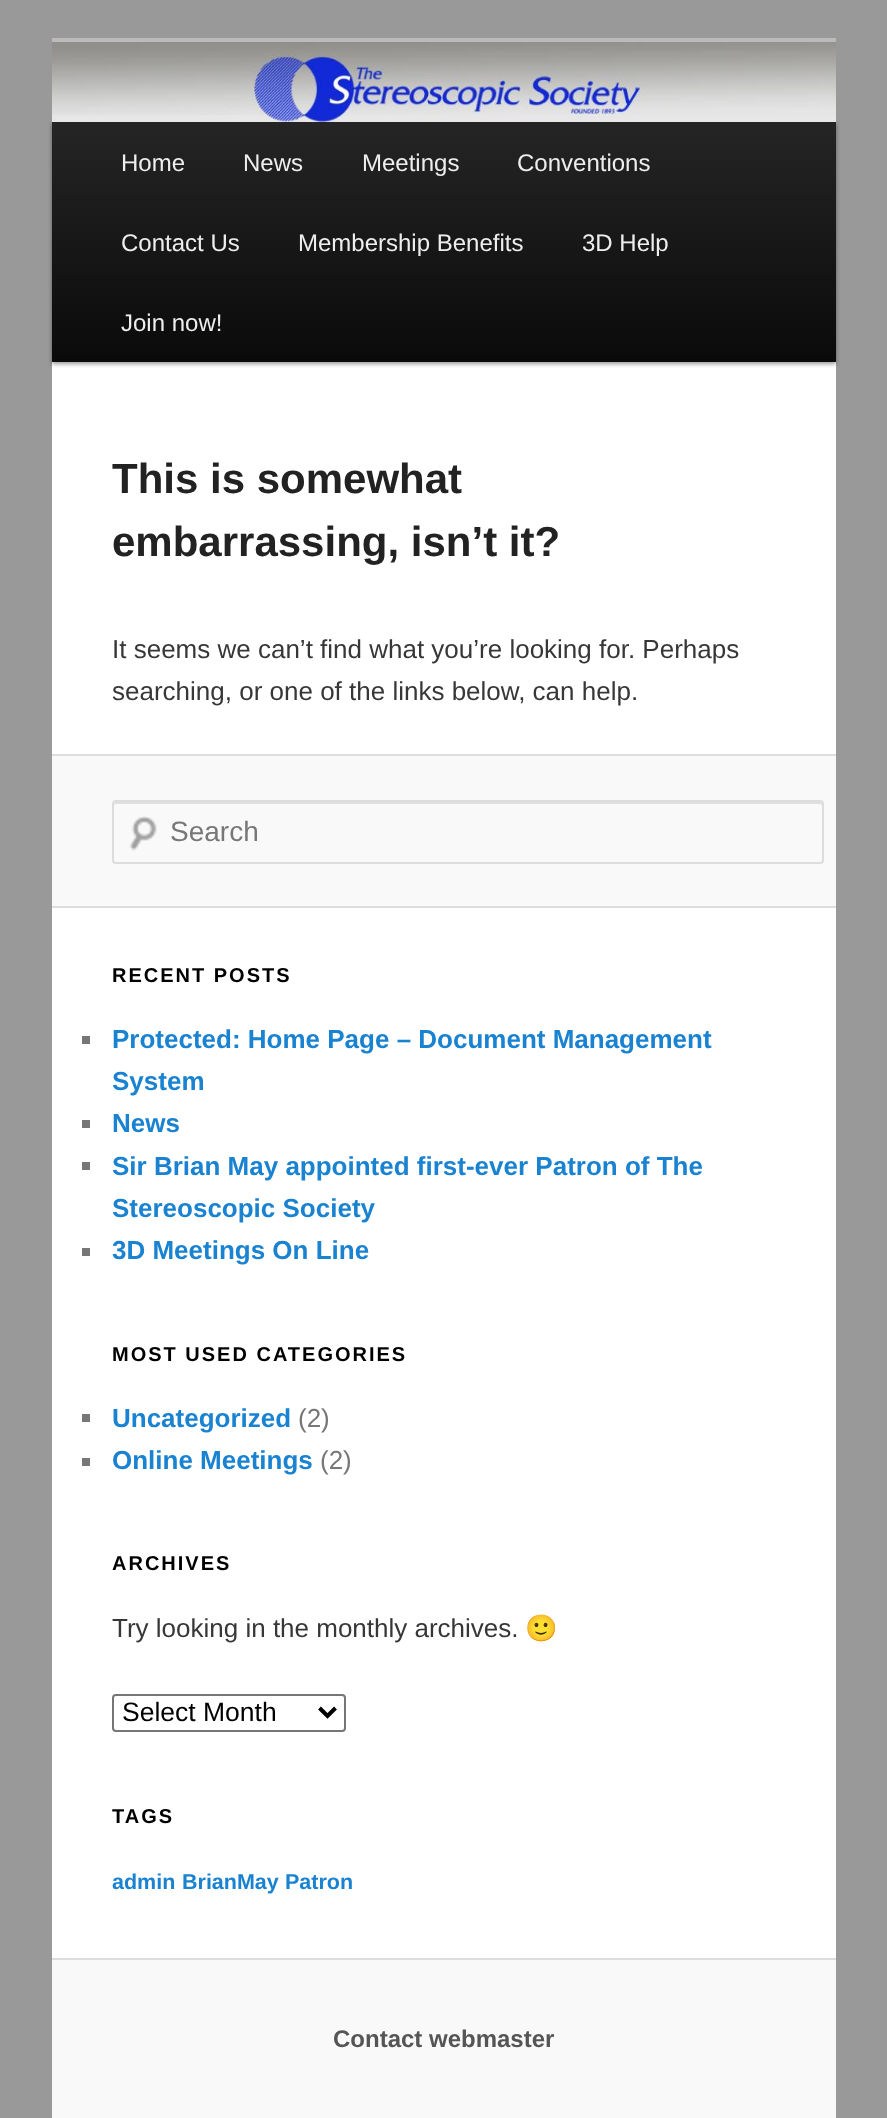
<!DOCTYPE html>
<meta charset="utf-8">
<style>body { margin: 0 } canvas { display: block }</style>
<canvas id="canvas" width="887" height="2118"></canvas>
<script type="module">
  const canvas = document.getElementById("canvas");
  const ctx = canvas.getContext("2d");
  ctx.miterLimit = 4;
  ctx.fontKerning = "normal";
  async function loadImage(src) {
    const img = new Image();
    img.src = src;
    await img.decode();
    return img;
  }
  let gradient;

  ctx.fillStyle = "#999999";
  ctx.fillRect(0, 0, 887, 2118);
  ctx.fillStyle = "#ffffff";
  ctx.fillRect(52, 362, 784, 1596);
  ctx.fillStyle = "#bbbbbb";
  ctx.fillRect(52, 38, 784, 4);
  ctx.fillStyle = "rgba(0, 0, 0, 0.4)";
  ctx.filter = "blur(2px)";
  ctx.beginPath();
  ctx.rect(52, 124, 784, 240);
  ctx.fill();
  ctx.filter = "none";
  ctx.drawImage(await loadImage("img1.png"), 52, 42, 784, 80);
  gradient = ctx.createLinearGradient(444, 122, 444, 362);
  gradient.addColorStop(0, "#252525");
  gradient.addColorStop(1, "#0a0a0a");
  ctx.fillStyle = gradient;
  ctx.fillRect(52, 122, 784, 240);
  ctx.font = "24px Liberation Sans";
  ctx.fillStyle = "#eeeeee";
  ctx.fillText("Home", 121, 171);
  ctx.fillText("News", 243, 171);
  ctx.fillText("Meetings", 362, 171);
  ctx.fillText("Conventions", 517, 171);
  ctx.fillText("Contact Us", 121, 251);
  ctx.fillText("Membership Benefits", 298, 251);
  ctx.fillText("3D Help", 582, 251);
  ctx.fillText("Join now!", 121, 331);
  ctx.font = "bold 42px Liberation Sans";
  ctx.fillStyle = "#222222";
  ctx.fillText("This is somewhat", 112, 493);
  ctx.fillText("embarrassing, isn’t it?", 112, 556);
  ctx.font = "26px Liberation Sans";
  ctx.fillStyle = "#373737";
  ctx.fillText("It seems we can’t find what you’re looking for. Perhaps", 112, 658);
  ctx.fillText("searching, or one of the links below, can help.", 112, 700);
  ctx.fillStyle = "#f9f9f9";
  ctx.fillRect(52, 756, 784, 150);
  ctx.fillStyle = "#dddddd";
  ctx.fillRect(52, 754, 784, 2);
  ctx.fillRect(52, 906, 784, 2);
  ctx.drawImage(await loadImage("img2.png"), 129, 816, 28, 35);
  ctx.fillStyle = "#e0e0e0";
  ctx.beginPath();
  ctx.moveTo(116, 804);
  ctx.lineTo(820, 804);
  ctx.bezierCurveTo(821, 804, 822, 805, 822, 806);
  ctx.lineTo(822, 803);
  ctx.lineTo(820, 802);
  ctx.lineTo(115, 802);
  ctx.bezierCurveTo(114, 803, 114, 805, 114, 806);
  ctx.bezierCurveTo(114, 805, 115, 804, 116, 804);
  ctx.closePath();
  ctx.fill();
  ctx.beginPath();
  ctx.roundRect(113, 801, 710, 62, 3);
  ctx.strokeStyle = "#dddddd";
  ctx.lineWidth = 2;
  ctx.stroke();
  ctx.font = "28px Liberation Sans";
  ctx.fillStyle = "#777777";
  ctx.fillText("Search", 170, 841);
  ctx.letterSpacing = "2px";
  ctx.font = "bold 20px Liberation Sans";
  ctx.fillStyle = "#000000";
  ctx.fillText("RECENT POSTS", 112, 982);
  ctx.fillStyle = "#777777";
  ctx.fillRect(82, 1036, 8, 8);
  ctx.letterSpacing = "0px";
  ctx.font = "bold 26px Liberation Sans";
  ctx.fillStyle = "#1982d1";
  ctx.fillText("Protected: Home Page – Document Management", 112, 1048);
  ctx.fillText("System", 112, 1090);
  ctx.fillStyle = "#777777";
  ctx.fillRect(82, 1120, 8, 8);
  ctx.fillStyle = "#1982d1";
  ctx.fillText("News", 112, 1132);
  ctx.fillStyle = "#777777";
  ctx.fillRect(82, 1162, 8, 8);
  ctx.fillStyle = "#1982d1";
  ctx.fillText("Sir Brian May appointed first-ever Patron of The", 112, 1175);
  ctx.fillText("Stereoscopic Society", 112, 1217);
  ctx.fillStyle = "#777777";
  ctx.fillRect(82, 1248, 8, 8);
  ctx.fillStyle = "#1982d1";
  ctx.fillText("3D Meetings On Line", 112, 1259);
  ctx.letterSpacing = "2px";
  ctx.font = "bold 20px Liberation Sans";
  ctx.fillStyle = "#000000";
  ctx.fillText("MOST USED CATEGORIES", 112, 1361);
  ctx.fillStyle = "#777777";
  ctx.fillRect(82, 1414, 8, 8);
  ctx.letterSpacing = "0px";
  ctx.font = "bold 26px Liberation Sans";
  ctx.fillStyle = "#1982d1";
  ctx.fillText("Uncategorized", 112, 1427);
  ctx.font = "26px Liberation Sans";
  ctx.fillStyle = "#777777";
  ctx.fillText("(2)", 298, 1427);
  ctx.fillRect(82, 1458, 8, 8);
  ctx.font = "bold 26px Liberation Sans";
  ctx.fillStyle = "#1982d1";
  ctx.fillText("Online Meetings", 112, 1469);
  ctx.font = "26px Liberation Sans";
  ctx.fillStyle = "#777777";
  ctx.fillText("(2)", 320, 1469);
  ctx.letterSpacing = "2px";
  ctx.font = "bold 20px Liberation Sans";
  ctx.fillStyle = "#000000";
  ctx.fillText("ARCHIVES", 112, 1570);
  ctx.letterSpacing = "0px";
  ctx.font = "26px Liberation Sans";
  ctx.fillStyle = "#373737";
  ctx.fillText("Try looking in the monthly archives.", 112, 1637);
  ctx.font = "26px Noto Color Emoji";
  ctx.fillText("🙂", 525, 1637);
  ctx.beginPath();
  ctx.roundRect(113, 1695, 232, 36, 3);
  ctx.strokeStyle = "#767676";
  ctx.stroke();
  ctx.beginPath();
  ctx.moveTo(319.5, 1708);
  ctx.lineTo(327.5, 1716);
  ctx.lineTo(335.5, 1708);
  ctx.strokeStyle = "#000000";
  ctx.lineWidth = 4;
  ctx.stroke();
  ctx.font = "26.5px Liberation Sans";
  ctx.fillStyle = "#000000";
  ctx.fillText("Select Month", 122, 1721);
  ctx.letterSpacing = "2px";
  ctx.font = "bold 20px Liberation Sans";
  ctx.fillText("TAGS", 112, 1823);
  ctx.letterSpacing = "0px";
  ctx.font = "bold 21.5px Liberation Sans";
  ctx.fillStyle = "#1982d1";
  ctx.fillText("admin", 112, 1889);
  ctx.fillText("BrianMay", 182, 1889);
  ctx.fillText("Patron", 285, 1889);
  ctx.fillStyle = "#f9f9f9";
  ctx.fillRect(52, 1960, 784, 158);
  ctx.fillStyle = "#dddddd";
  ctx.fillRect(52, 1958, 784, 2);
  ctx.font = "bold 24px Liberation Sans";
  ctx.fillStyle = "#555555";
  ctx.fillText("Contact webmaster", 333, 2047);
</script>
